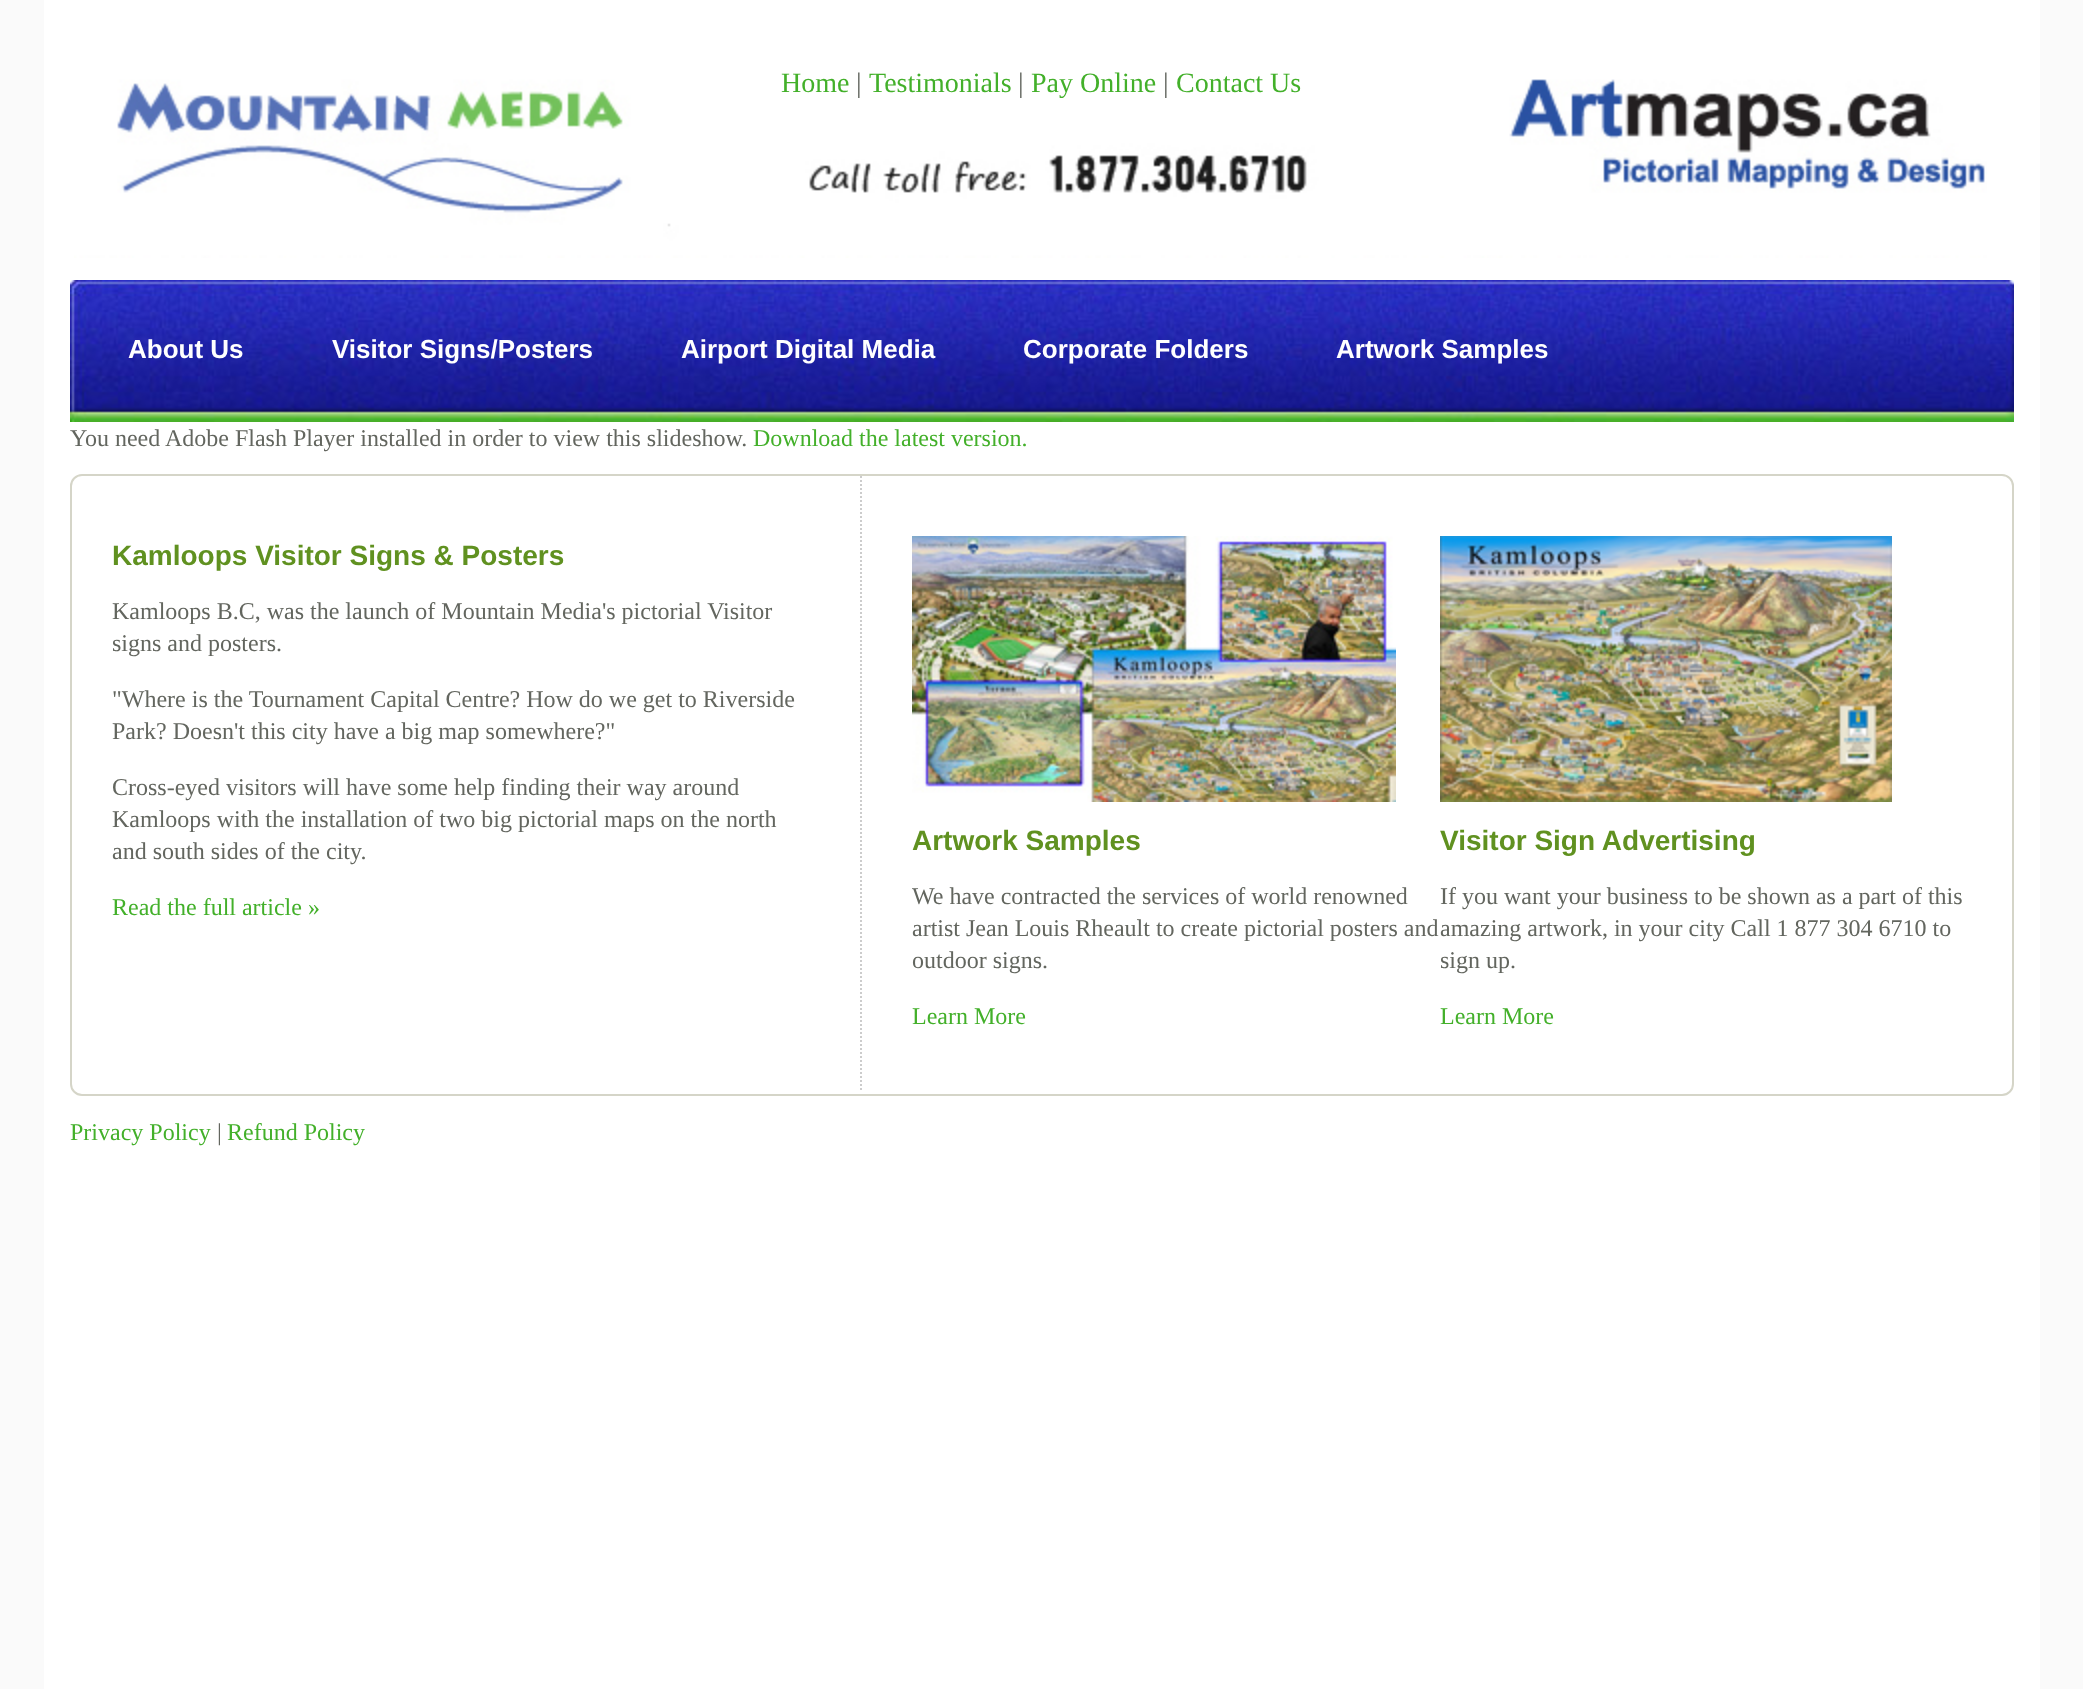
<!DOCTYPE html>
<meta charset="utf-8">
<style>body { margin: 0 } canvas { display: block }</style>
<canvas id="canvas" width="2083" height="1689"></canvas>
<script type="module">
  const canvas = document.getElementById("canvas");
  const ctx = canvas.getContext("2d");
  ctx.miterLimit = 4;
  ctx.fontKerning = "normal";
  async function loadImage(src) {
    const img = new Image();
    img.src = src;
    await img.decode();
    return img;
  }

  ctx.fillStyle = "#fafafa";
  ctx.fillRect(0, 0, 2083, 1689);
  ctx.fillStyle = "#ffffff";
  ctx.fillRect(44, 0, 1996, 1689);
  ctx.drawImage(await loadImage("img1.png"), 74, 79, 1913, 179);
  ctx.font = "28px Liberation Serif";
  ctx.fillStyle = "#43b02a";
  ctx.fillText("Home", 781, 92);
  ctx.fillStyle = "#63665f";
  ctx.fillText("|", 856, 92);
  ctx.fillStyle = "#43b02a";
  ctx.fillText("Testimonials", 869, 92);
  ctx.fillStyle = "#63665f";
  ctx.fillText("|", 1018, 92);
  ctx.fillStyle = "#43b02a";
  ctx.fillText("Pay Online", 1031, 92);
  ctx.fillStyle = "#63665f";
  ctx.fillText("|", 1163, 92);
  ctx.fillStyle = "#43b02a";
  ctx.fillText("Contact Us", 1176, 92);
  ctx.drawImage(await loadImage("img2.png"), 70, 280, 1944, 142);
  ctx.font = "bold 26px Liberation Sans";
  ctx.fillStyle = "#ffffff";
  ctx.fillText("About Us", 128, 358);
  ctx.fillText("Visitor Signs/Posters", 332, 358);
  ctx.fillText("Airport Digital Media", 681, 358);
  ctx.fillText("Corporate Folders", 1023, 358);
  ctx.fillText("Artwork Samples", 1336, 358);
  ctx.font = "24px Liberation Serif";
  ctx.fillStyle = "#63665f";
  ctx.fillText("You need Adobe Flash Player installed in order to view this slideshow.", 70, 446);
  ctx.fillStyle = "#43b02a";
  ctx.fillText("Download the latest version.", 753, 446);
  ctx.beginPath();
  ctx.roundRect(71, 475, 1942, 620, 11);
  ctx.strokeStyle = "#d5d5c8";
  ctx.lineWidth = 2;
  ctx.stroke();
  ctx.font = "bold 28px Liberation Sans";
  ctx.fillStyle = "#609120";
  ctx.fillText("Kamloops Visitor Signs & Posters", 112, 565);
  ctx.font = "24px Liberation Serif";
  ctx.fillStyle = "#63665f";
  ctx.fillText("Kamloops B.C, was the launch of Mountain Media's pictorial Visitor", 112, 619);
  ctx.fillText("signs and posters.", 112, 651);
  ctx.fillText("\"Where is the Tournament Capital Centre? How do we get to Riverside", 112, 707);
  ctx.fillText("Park? Doesn't this city have a big map somewhere?\"", 112, 739);
  ctx.fillText("Cross-eyed visitors will have some help finding their way around", 112, 795);
  ctx.fillText("Kamloops with the installation of two big pictorial maps on the north", 112, 827);
  ctx.fillText("and south sides of the city.", 112, 859);
  ctx.fillStyle = "#43b02a";
  ctx.fillText("Read the full article »", 112, 915);
  ctx.beginPath();
  ctx.moveTo(861, 476);
  ctx.lineTo(861, 1092);
  ctx.strokeStyle = "#cccccc";
  ctx.setLineDash([2, 2]);
  ctx.stroke();
  ctx.drawImage(await loadImage("img3.png"), 912, 536, 484, 266);
  ctx.font = "bold 28px Liberation Sans";
  ctx.fillStyle = "#609120";
  ctx.fillText("Artwork Samples", 912, 850);
  ctx.font = "24px Liberation Serif";
  ctx.fillStyle = "#63665f";
  ctx.fillText("We have contracted the services of world renowned", 912, 904);
  ctx.fillText("artist Jean Louis Rheault to create pictorial posters and", 912, 936);
  ctx.fillText("outdoor signs.", 912, 968);
  ctx.fillStyle = "#43b02a";
  ctx.fillText("Learn More", 912, 1024);
  ctx.drawImage(await loadImage("img4.png"), 1440, 536, 452, 266);
  ctx.font = "bold 28px Liberation Sans";
  ctx.fillStyle = "#609120";
  ctx.fillText("Visitor Sign Advertising", 1440, 850);
  ctx.font = "24px Liberation Serif";
  ctx.fillStyle = "#63665f";
  ctx.fillText("If you want your business to be shown as a part of this", 1440, 904);
  ctx.fillText("amazing artwork, in your city Call 1 877 304 6710 to", 1440, 936);
  ctx.fillText("sign up.", 1440, 968);
  ctx.fillStyle = "#43b02a";
  ctx.fillText("Learn More", 1440, 1024);
  ctx.fillText("Privacy Policy", 70, 1140);
  ctx.fillStyle = "#63665f";
  ctx.fillText("|", 217, 1140);
  ctx.fillStyle = "#43b02a";
  ctx.fillText("Refund Policy", 227, 1140);
</script>
